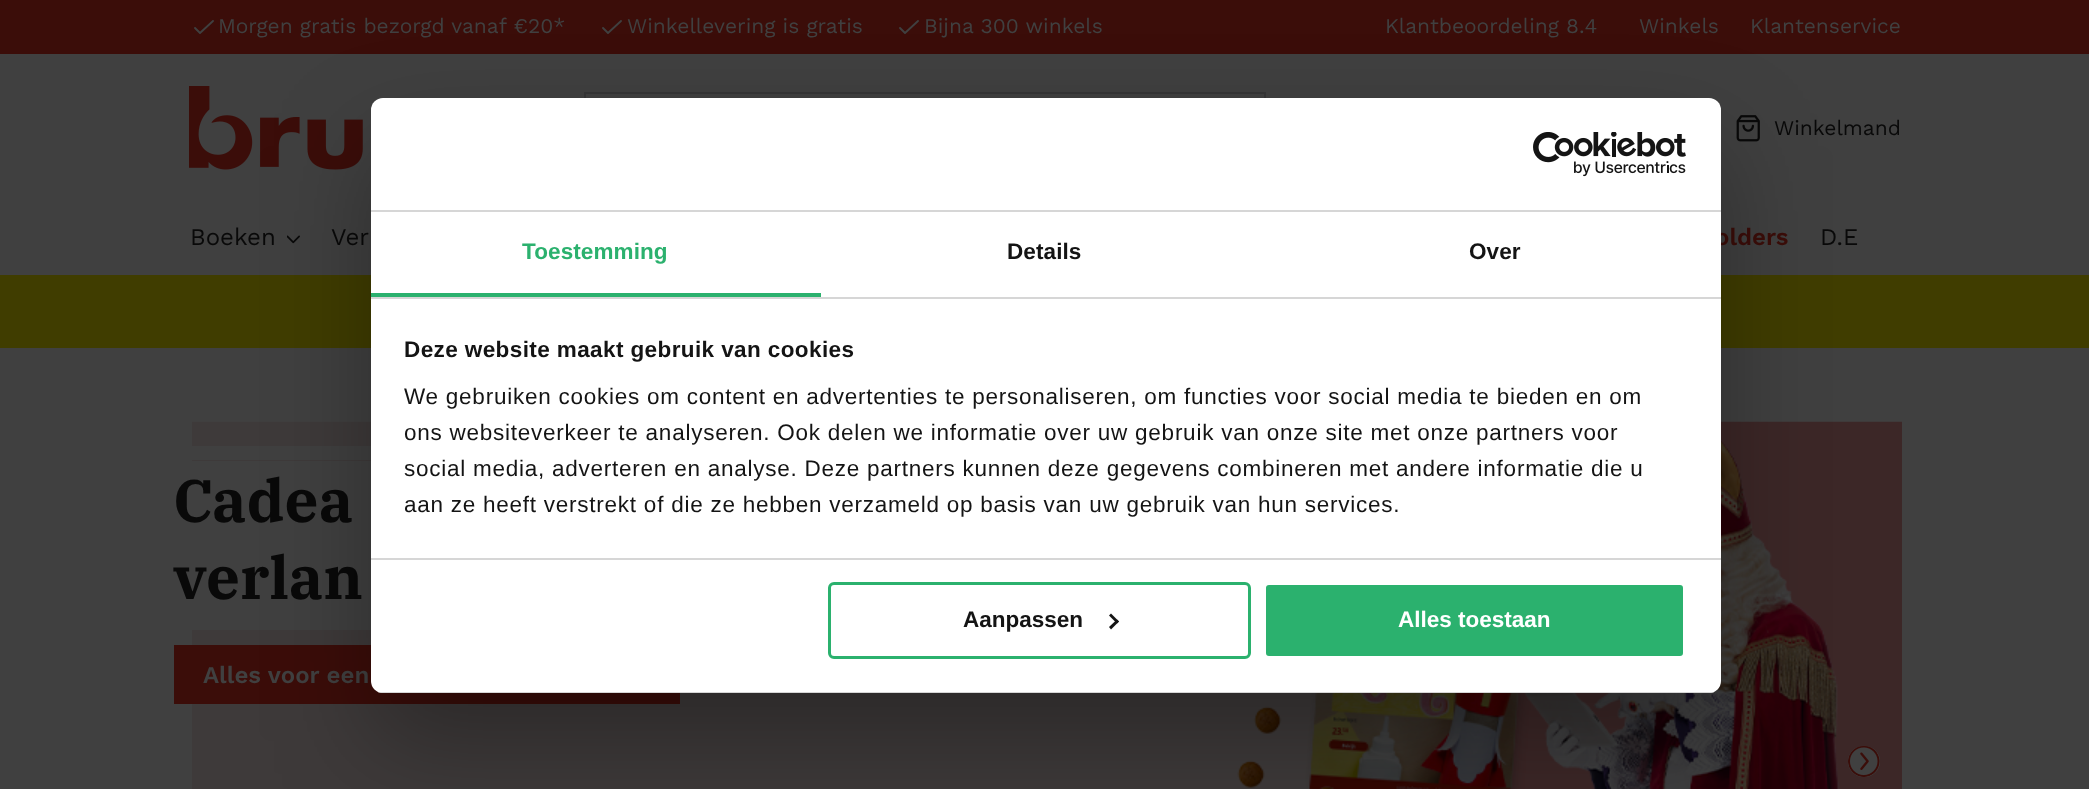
<!DOCTYPE html>
<meta charset="utf-8">
<style>body { margin: 0 } canvas { display: block }</style>
<canvas id="canvas" width="2089" height="789"></canvas>
<script type="module">
  const canvas = document.getElementById("canvas");
  const ctx = canvas.getContext("2d");
  ctx.miterLimit = 4;
  ctx.fontKerning = "normal";
  async function loadImage(src) {
    const img = new Image();
    img.src = src;
    await img.decode();
    return img;
  }

  ctx.fillStyle = "#404040";
  ctx.fillRect(0, 0, 2089, 789);
  ctx.fillStyle = "#3b0d09";
  ctx.fillRect(0, 0, 2089, 54);
  ctx.beginPath();
  ctx.moveTo(195, 28);
  ctx.lineTo(200, 33);
  ctx.lineTo(213, 21);
  ctx.strokeStyle = "#404040";
  ctx.lineWidth = 1.9;
  ctx.lineCap = "round";
  ctx.lineJoin = "round";
  ctx.stroke();
  ctx.font = "21px Work Sans";
  ctx.fillStyle = "#404040";
  ctx.fillText("Morgen gratis bezorgd vanaf €20*", 218, 33);
  ctx.beginPath();
  ctx.moveTo(603, 28);
  ctx.lineTo(608, 33);
  ctx.lineTo(621, 21);
  ctx.stroke();
  ctx.fillText("Winkellevering is gratis", 627, 33);
  ctx.beginPath();
  ctx.moveTo(900, 28);
  ctx.lineTo(905, 33);
  ctx.lineTo(918, 21);
  ctx.stroke();
  ctx.fillText("Bijna 300 winkels", 924, 33);
  ctx.fillText("Klantbeoordeling 8.4", 1385, 33);
  ctx.fillText("Winkels", 1639, 33);
  ctx.fillText("Klantenservice", 1750, 33);
  ctx.drawImage(await loadImage("img1.png"), 189, 86, 174, 84);
  ctx.strokeStyle = "#363637";
  ctx.lineWidth = 2;
  ctx.lineJoin = "miter";
  ctx.strokeRect(585, 93, 680, 71);
  ctx.drawImage(await loadImage("img2.png"), 1736, 115, 24, 27);
  ctx.fillStyle = "#090909";
  ctx.fillText("Winkelmand", 1774, 135);
  ctx.font = "24px Work Sans";
  ctx.fillText("Boeken", 190, 245);
  ctx.drawImage(await loadImage("img3.png"), 287, 235, 13, 9);
  ctx.fillText("Ver", 331, 245);
  ctx.font = "600 24px Work Sans";
  ctx.fillStyle = "#3b0d09";
  ctx.fillText("olders", 1715, 245);
  ctx.font = "24px Work Sans";
  ctx.fillStyle = "#090909";
  ctx.fillText("D.E", 1820, 245);
  ctx.fillStyle = "#403d00";
  ctx.fillRect(0, 275, 2089, 73);
  ctx.drawImage(await loadImage("img4.png"), 192, 421, 1710, 368);
  ctx.fillStyle = "#404040";
  ctx.beginPath();
  ctx.moveTo(189, 446);
  ctx.lineTo(189, 460);
  ctx.lineTo(756, 460);
  ctx.lineTo(756, 524);
  ctx.lineTo(771, 524);
  ctx.lineTo(771, 446);
  ctx.closePath();
  ctx.fill();
  ctx.fillRect(192, 461, 179, 76);
  ctx.font = "bold 60px IBM Plex Serif";
  ctx.fillStyle = "#090909";
  ctx.fillText("Cadea", 173, 522);
  ctx.fillStyle = "#404040";
  ctx.beginPath();
  ctx.moveTo(189, 615);
  ctx.lineTo(189, 630);
  ctx.lineTo(579, 630);
  ctx.lineTo(579, 552);
  ctx.lineTo(564, 552);
  ctx.lineTo(564, 615);
  ctx.closePath();
  ctx.fill();
  ctx.fillRect(192, 537, 179, 78);
  ctx.fillStyle = "#090909";
  ctx.fillText("verlan", 173, 599);
  ctx.fillStyle = "#3b0d09";
  ctx.fillRect(189, 645, 475, 59);
  ctx.font = "600 24px Work Sans";
  ctx.fillStyle = "#404040";
  ctx.fillText("Alles voor een", 203, 683);
  ctx.fillStyle = "#3b0d09";
  ctx.beginPath();
  ctx.moveTo(174, 645);
  ctx.lineTo(174, 704);
  ctx.lineTo(650, 704);
  ctx.lineTo(189, 704);
  ctx.lineTo(189, 645);
  ctx.closePath();
  ctx.fill();
  ctx.beginPath();
  ctx.moveTo(204, 704);
  ctx.lineTo(680, 704);
  ctx.lineTo(680, 645);
  ctx.lineTo(664, 645);
  ctx.lineTo(664, 704);
  ctx.closePath();
  ctx.fill();
  ctx.fillStyle = "#404040";
  ctx.beginPath();
  ctx.roundRect(1848, 746, 32, 31, 15.5);
  ctx.fill();
  ctx.drawImage(await loadImage("img5.png"), 1848, 746, 32, 31);
  ctx.fillStyle = "rgba(0, 0, 0, 0.3)";
  ctx.filter = "blur(51px)";
  ctx.beginPath();
  ctx.roundRect(371, 146, 1350, 595, 12);
  ctx.fill();
  ctx.filter = "none";
  ctx.fillStyle = "#ffffff";
  ctx.beginPath();
  ctx.roundRect(371, 98, 1350, 595, 12);
  ctx.fill();
  ctx.fillStyle = "#d6d6d6";
  ctx.fillRect(371, 210, 1350, 2);
  ctx.drawImage(await loadImage("img6.png"), 1533, 132, 153, 45);
  ctx.fillRect(371, 297, 1350, 2);
  ctx.fillStyle = "#2bb16e";
  ctx.fillRect(371, 293, 450, 4);
  ctx.letterSpacing = "0.1px";
  ctx.font = "bold 22.5px Liberation Sans";
  ctx.fillText("Toestemming", 522, 259);
  ctx.fillStyle = "#141414";
  ctx.fillText("Details", 1007, 259);
  ctx.fillText("Over", 1469, 259);
  ctx.fillStyle = "#d6d6d6";
  ctx.fillRect(371, 558, 1350, 2);
  ctx.letterSpacing = "0.4px";
  ctx.fillStyle = "#141414";
  ctx.fillText("Deze website maakt gebruik van cookies", 404, 357);
  ctx.letterSpacing = "0.75px";
  ctx.font = "22.5px Liberation Sans";
  ctx.fillText("We gebruiken cookies om content en advertenties te personaliseren, om functies voor social media te bieden en om", 404, 404);
  ctx.fillText("ons websiteverkeer te analyseren. Ook delen we informatie over uw gebruik van onze site met onze partners voor", 404, 440);
  ctx.fillText("social media, adverteren en analyse. Deze partners kunnen deze gegevens combineren met andere informatie die u", 404, 476);
  ctx.fillText("aan ze heeft verstrekt of die ze hebben verzameld op basis van uw gebruik van hun services.", 404, 512);
  ctx.save();
  ctx.beginPath();
  ctx.roundRect(371, 98, 1350, 595, 12);
  ctx.clip();
  ctx.fillStyle = "#d6d6d6";
  ctx.fillRect(371, 692, 1350, 1);
  ctx.restore();
  ctx.beginPath();
  ctx.roundRect(829.5, 583.5, 420, 74, 4.5);
  ctx.strokeStyle = "#2bb16e";
  ctx.lineWidth = 3;
  ctx.stroke();
  ctx.letterSpacing = "0px";
  ctx.font = "bold 22.5px Liberation Sans";
  ctx.fillText("Aanpassen", 963, 627);
  ctx.beginPath();
  ctx.moveTo(1111, 613.5);
  ctx.lineTo(1119, 621.5);
  ctx.lineTo(1117, 623.5);
  ctx.lineTo(1109, 615.5);
  ctx.closePath();
  ctx.fill();
  ctx.beginPath();
  ctx.moveTo(1117, 619.5);
  ctx.lineTo(1119, 621.5);
  ctx.lineTo(1111, 629.5);
  ctx.lineTo(1109, 627);
  ctx.closePath();
  ctx.fill();
  ctx.fillStyle = "#2bb16e";
  ctx.beginPath();
  ctx.roundRect(1264.5, 583.5, 420, 74, 4.5);
  ctx.fill();
  ctx.strokeStyle = "#ffffff";
  ctx.stroke();
  ctx.fillStyle = "#ffffff";
  ctx.fillText("Alles toestaan", 1398, 627);
</script>
